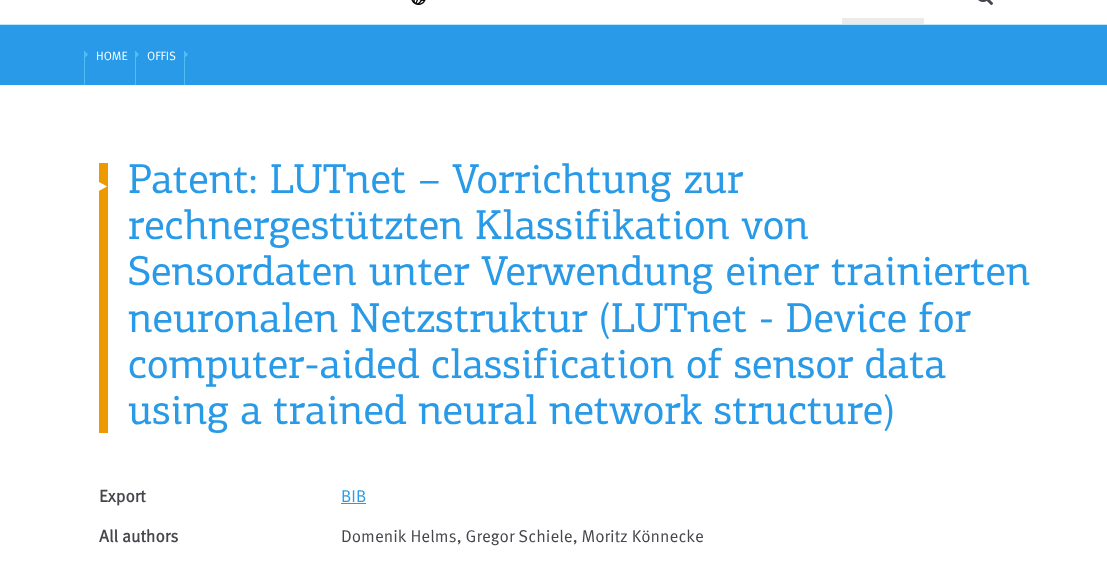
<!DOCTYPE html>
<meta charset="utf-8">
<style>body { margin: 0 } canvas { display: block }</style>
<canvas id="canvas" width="1107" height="572"></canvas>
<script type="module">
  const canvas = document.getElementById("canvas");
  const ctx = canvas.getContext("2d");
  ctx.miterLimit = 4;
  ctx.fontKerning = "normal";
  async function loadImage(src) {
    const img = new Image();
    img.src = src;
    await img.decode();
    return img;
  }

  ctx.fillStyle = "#ffffff";
  ctx.fillRect(0, 0, 1107, 572);
  ctx.fillStyle = "#bfe6f8";
  ctx.fillRect(0, 24, 1107, 1);
  ctx.drawImage(await loadImage("img1.png"), 411, 0, 15, 5);
  ctx.drawImage(await loadImage("img2.png"), 978, 0, 16, 6);
  ctx.fillStyle = "#ebebeb";
  ctx.fillRect(842, 18, 82, 6);
  ctx.fillStyle = "#289ae7";
  ctx.fillRect(0, 25, 1107, 60);
  ctx.drawImage(await loadImage("img3.png"), 84, 51, 4, 34);
  ctx.font = "12px 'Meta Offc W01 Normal'";
  ctx.fillStyle = "#ffffff";
  ctx.fillText("HOME", 96, 60);
  ctx.drawImage(await loadImage("img3.png"), 135, 51, 4, 34);
  ctx.fillText("OFFIS", 147, 60);
  ctx.drawImage(await loadImage("img3.png"), 184, 51, 4, 34);
  ctx.fillStyle = "#ed9900";
  ctx.fillRect(99, 163, 9, 270);
  ctx.drawImage(await loadImage("img4.png"), 99, 182, 8, 9);
  ctx.wordSpacing = "1px";
  ctx.font = "42px 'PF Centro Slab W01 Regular'";
  ctx.fillStyle = "#289ae7";
  ctx.fillText("Patent: LUTnet – Vorrichtung zur", 128, 193);
  ctx.wordSpacing = "0px";
  ctx.fillText("rechnergestützten Klassifikation von", 128, 239);
  ctx.wordSpacing = "0.5px";
  ctx.fillText("Sensordaten unter Verwendung einer trainierten", 128, 285);
  ctx.wordSpacing = "0px";
  ctx.fillText("neuronalen Netzstruktur (LUTnet - Device for", 128, 332);
  ctx.fillText("computer-aided classification of sensor data", 128, 378);
  ctx.fillText("using a trained neural network structure)", 128, 424);
  ctx.font = "bold 17px 'Meta Offc W01 Normal'";
  ctx.fillStyle = "#46464d";
  ctx.fillText("Export", 99, 502);
  ctx.font = "17px 'Meta Offc W01 Normal'";
  ctx.fillStyle = "#289ae7";
  ctx.fillText("BIB", 341, 502);
  ctx.fillRect(341, 503, 25, 1);
  ctx.font = "bold 17px 'Meta Offc W01 Normal'";
  ctx.fillStyle = "#46464d";
  ctx.fillText("All authors", 99, 542);
  ctx.font = "17px 'Meta Offc W01 Normal'";
  ctx.fillText("Domenik Helms, Gregor Schiele, Moritz Könnecke", 341, 542);
</script>
